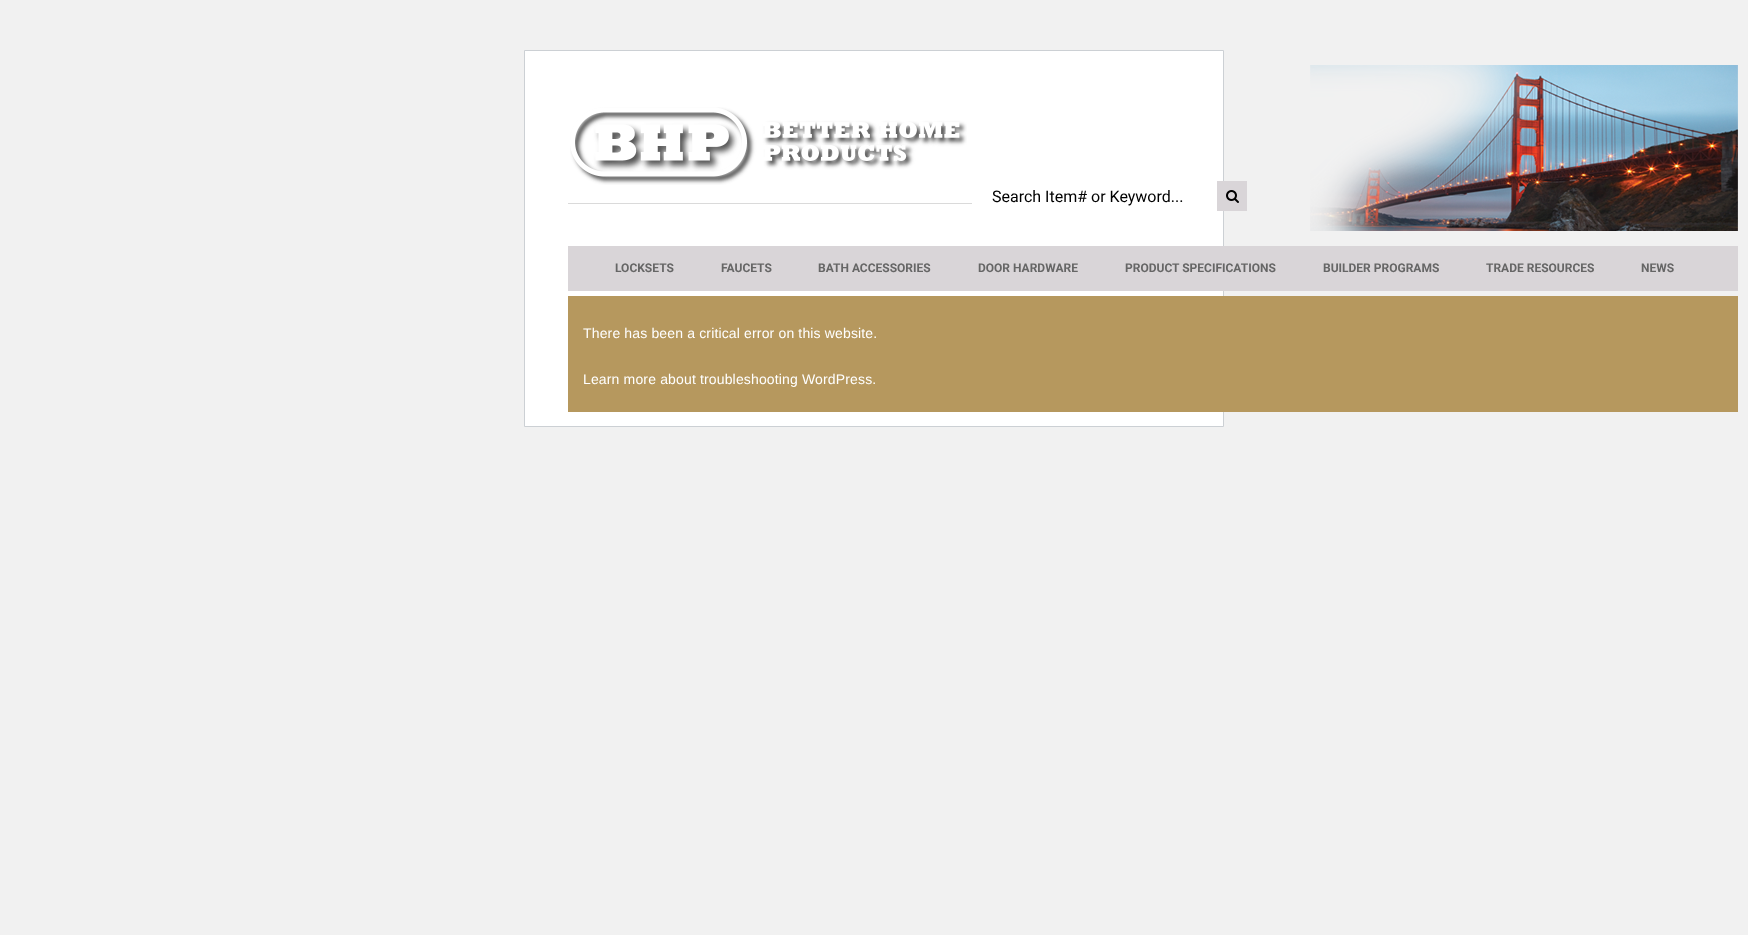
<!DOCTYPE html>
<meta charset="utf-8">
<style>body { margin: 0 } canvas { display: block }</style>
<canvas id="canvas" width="1748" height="935"></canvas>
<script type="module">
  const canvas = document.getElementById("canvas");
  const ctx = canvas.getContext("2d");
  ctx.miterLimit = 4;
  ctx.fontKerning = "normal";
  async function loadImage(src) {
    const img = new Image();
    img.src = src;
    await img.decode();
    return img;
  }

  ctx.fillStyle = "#f1f1f1";
  ctx.fillRect(0, 0, 1748, 935);
  ctx.fillStyle = "#ffffff";
  ctx.beginPath();
  ctx.rect(524.5, 50.5, 699, 376);
  ctx.fill();
  ctx.strokeStyle = "#ccd0d4";
  ctx.stroke();
  ctx.fillStyle = "#dadada";
  ctx.fillRect(568, 203, 404, 1);
  ctx.drawImage(await loadImage("img1.png"), 570, 107, 397, 78);
  ctx.drawImage(await loadImage("img2.png"), 1310, 65, 428, 166);
  ctx.font = "16px Roboto";
  ctx.fillStyle = "#000000";
  ctx.fillText("Search Item# or Keyword...", 992, 202);
  ctx.fillStyle = "#d9d5d8";
  ctx.fillRect(1217, 181, 30, 30);
  ctx.drawImage(await loadImage("img3.png"), 1226, 190, 13, 13);
  ctx.fillRect(568, 246, 1170, 45);
  ctx.font = "bold 12px Roboto";
  ctx.fillStyle = "#666666";
  ctx.fillText("LOCKSETS", 615, 272);
  ctx.fillText("FAUCETS", 721, 272);
  ctx.fillText("BATH ACCESSORIES", 818, 272);
  ctx.fillText("DOOR HARDWARE", 978, 272);
  ctx.fillText("PRODUCT SPECIFICATIONS", 1125, 272);
  ctx.fillText("BUILDER PROGRAMS", 1323, 272);
  ctx.fillText("TRADE RESOURCES", 1486, 272);
  ctx.fillText("NEWS", 1641, 272);
  ctx.fillStyle = "#b6985e";
  ctx.fillRect(568, 296, 1170, 116);
  ctx.letterSpacing = "0.15px";
  ctx.font = "14px Liberation Sans";
  ctx.fillStyle = "#ffffff";
  ctx.fillText("There has been a critical error on this website.", 583, 338);
  ctx.fillText("Learn more about troubleshooting WordPress.", 583, 384);
</script>
